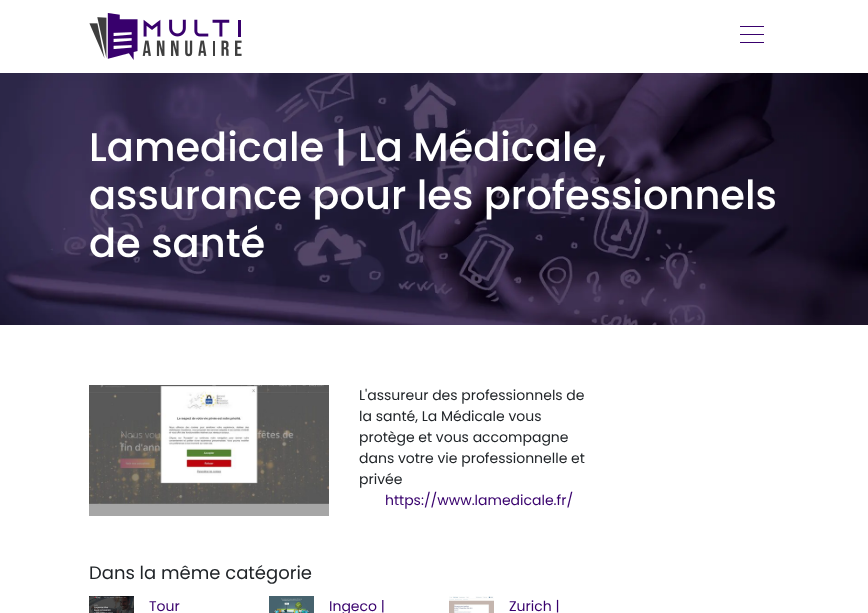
<!DOCTYPE html>
<meta charset="utf-8">
<style>body { margin: 0 } canvas { display: block }</style>
<canvas id="canvas" width="868" height="613"></canvas>
<script type="module">
  const canvas = document.getElementById("canvas");
  const ctx = canvas.getContext("2d");
  ctx.miterLimit = 4;
  ctx.fontKerning = "normal";
  async function loadImage(src) {
    const img = new Image();
    img.src = src;
    await img.decode();
    return img;
  }

  ctx.fillStyle = "#ffffff";
  ctx.fillRect(0, 0, 868, 613);
  ctx.drawImage(await loadImage("img1.png"), 89, 13, 153, 47);
  ctx.fillStyle = "#38006d";
  ctx.fillRect(740, 26, 24, 1);
  ctx.fillRect(740, 34, 24, 1);
  ctx.fillRect(740, 42, 24, 1);
  ctx.drawImage(await loadImage("img2.png"), 0, 73, 868, 252);
  ctx.font = "500 40px Poppins";
  ctx.fillStyle = "#ffffff";
  ctx.fillText("Lamedicale | La Médicale,", 89, 161);
  ctx.fillText("assurance pour les professionnels", 89, 209);
  ctx.fillText("de santé", 89, 257);
  ctx.drawImage(await loadImage("img3.png"), 89, 385, 240, 131);
  ctx.font = "14px Poppins";
  ctx.fillStyle = "#212529";
  ctx.fillText("L'assureur des professionnels de", 359, 400);
  ctx.fillText("la santé, La Médicale vous", 359, 421);
  ctx.fillText("protège et vous accompagne", 359, 442);
  ctx.fillText("dans votre vie professionnelle et", 359, 463);
  ctx.fillText("privée", 359, 484);
  ctx.fillStyle = "#38006d";
  ctx.fillText("https://www.lamedicale.fr/", 385, 505);
  ctx.font = "18px Poppins";
  ctx.fillStyle = "#212529";
  ctx.fillText("Dans la même catégorie", 89, 579);
  ctx.drawImage(await loadImage("img4.png"), 89, 596, 45, 17);
  ctx.font = "14px Poppins";
  ctx.fillStyle = "#38006d";
  ctx.fillText("Tour", 149, 611);
  ctx.drawImage(await loadImage("img5.png"), 269, 596, 45, 17);
  ctx.fillText("Ingeco |", 329, 611);
  ctx.drawImage(await loadImage("img6.png"), 449, 596, 45, 17);
  ctx.fillText("Zurich |", 509, 611);
</script>
